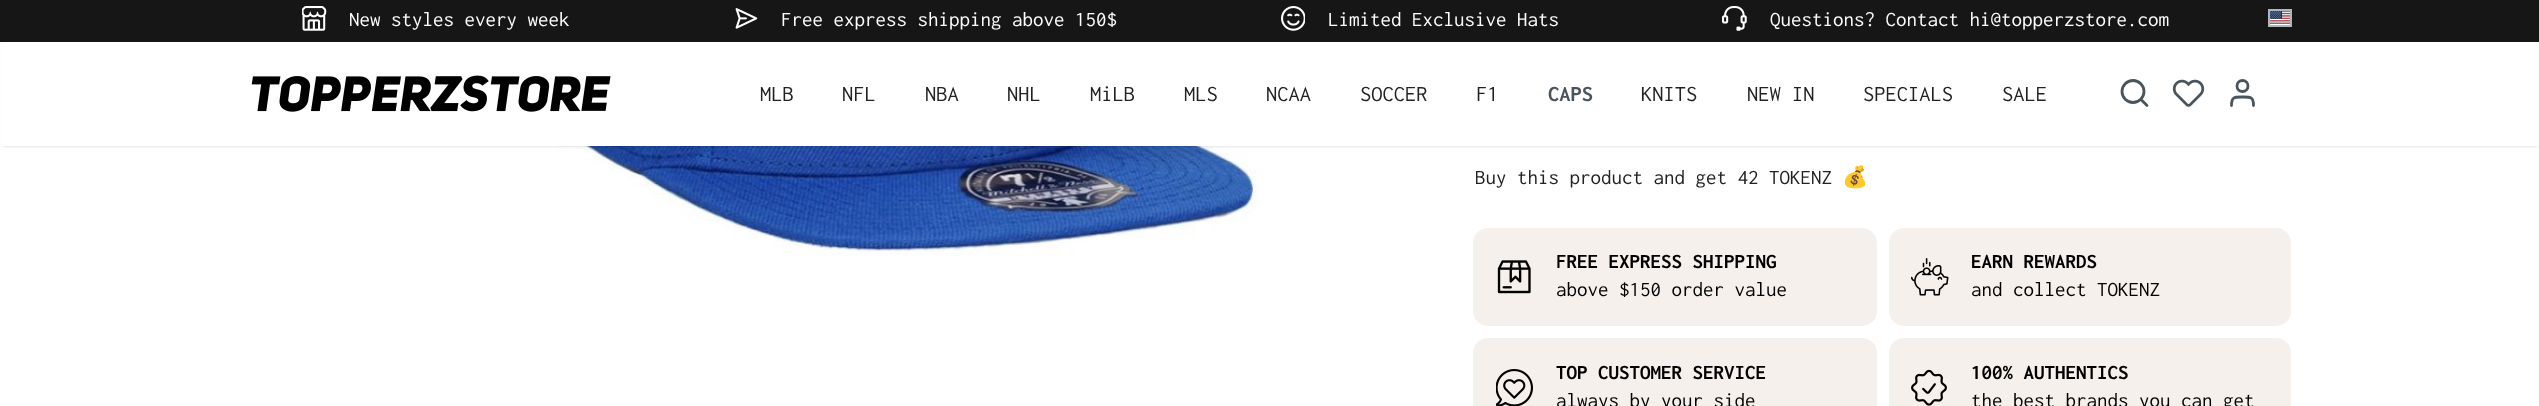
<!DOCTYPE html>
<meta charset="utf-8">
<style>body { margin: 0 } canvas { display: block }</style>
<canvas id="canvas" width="2539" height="406"></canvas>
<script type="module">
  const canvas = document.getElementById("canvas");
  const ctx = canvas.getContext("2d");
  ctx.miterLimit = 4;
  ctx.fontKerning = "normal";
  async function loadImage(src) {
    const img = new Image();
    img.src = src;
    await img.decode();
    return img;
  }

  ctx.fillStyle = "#ffffff";
  ctx.fillRect(0, 0, 2539, 406);
  ctx.drawImage(await loadImage("img8.png"), 542, 146, 723, 110);
  ctx.fillStyle = "rgba(0, 0, 0, 0.2)";
  ctx.filter = "blur(1.5px)";
  ctx.beginPath();
  ctx.rect(3, 6, 2534, 140);
  ctx.fill();
  ctx.filter = "none";
  ctx.fillStyle = "#ffffff";
  ctx.fillRect(1, 42, 2538, 104);
  ctx.fillStyle = "#161616";
  ctx.fillRect(0, 0, 2539, 42);
  ctx.drawImage(await loadImage("img1.png"), 302, 6, 25, 25);
  ctx.font = "21px Inconsolata";
  ctx.fillStyle = "#fdfdfd";
  ctx.fillText("New styles every week", 349, 26);
  ctx.drawImage(await loadImage("img2.png"), 735, 8, 23, 21);
  ctx.fillText("Free express shipping above 150$", 781, 26);
  ctx.drawImage(await loadImage("img3.png"), 1281, 6, 24, 25);
  ctx.fillText("Limited Exclusive Hats", 1328, 26);
  ctx.drawImage(await loadImage("img4.png"), 1722, 6, 25, 25);
  ctx.fillText("Questions? Contact hi@topperzstore.com", 1770, 26);
  ctx.drawImage(await loadImage("img5.png"), 2270, 11, 20, 14);
  ctx.strokeStyle = "#adb5bd";
  ctx.lineWidth = 2;
  ctx.strokeRect(2269, 10, 22, 16);
  ctx.drawImage(await loadImage("img6.png"), 251, 75, 360, 37);
  ctx.font = "22.5px Inconsolata";
  ctx.fillStyle = "#222222";
  ctx.fillText("MLB", 760, 101);
  ctx.fillText("NFL", 842, 101);
  ctx.fillText("NBA", 925, 101);
  ctx.fillText("NHL", 1007, 101);
  ctx.fillText("MiLB", 1090, 101);
  ctx.fillText("MLS", 1184, 101);
  ctx.fillText("NCAA", 1266, 101);
  ctx.fillText("SOCCER", 1360, 101);
  ctx.fillText("F1", 1476, 101);
  ctx.font = "bold 22.5px Inconsolata";
  ctx.fillStyle = "#4a545b";
  ctx.fillText("CAPS", 1548, 101);
  ctx.font = "22.5px Inconsolata";
  ctx.fillStyle = "#222222";
  ctx.fillText("KNITS", 1641, 101);
  ctx.fillText("NEW IN", 1747, 101);
  ctx.fillText("SPECIALS", 1863, 101);
  ctx.fillText("SALE", 2002, 101);
  ctx.beginPath();
  ctx.arc(2133, 91.5, 11, 0, Math.PI * 2);
  ctx.strokeStyle = "#4a545b";
  ctx.lineWidth = 2.8;
  ctx.stroke();
  ctx.beginPath();
  ctx.moveTo(2147, 105.5);
  ctx.lineTo(2141, 99.5);
  ctx.lineCap = "round";
  ctx.lineJoin = "round";
  ctx.stroke();
  ctx.drawImage(await loadImage("img7.png"), 2172, 79, 33, 28);
  ctx.beginPath();
  ctx.moveTo(2253.5, 105.5);
  ctx.bezierCurveTo(2253.5, 96.5, 2250.5, 97, 2242.5, 97);
  ctx.bezierCurveTo(2234.5, 97, 2231.5, 96.5, 2231.5, 105.5);
  ctx.stroke();
  ctx.beginPath();
  ctx.arc(2242.5, 86, 5.5, 0, Math.PI * 2);
  ctx.stroke();
  ctx.font = "21px Inconsolata";
  ctx.fillText("Buy this product and get 42 TOKENZ", 1475, 184);
  ctx.font = "21px Noto Color Emoji";
  ctx.fillText("💰", 1842, 184);
  ctx.fillStyle = "#f6f0ec";
  ctx.beginPath();
  ctx.roundRect(1473, 228, 404, 98, 15);
  ctx.fill();
  ctx.drawImage(await loadImage("img9.png"), 1497, 260, 34, 34);
  ctx.font = "bold 21px Inconsolata";
  ctx.fillStyle = "#000000";
  ctx.fillText("FREE EXPRESS SHIPPING", 1556, 268);
  ctx.font = "21px Inconsolata";
  ctx.fillText("above $150 order value", 1556, 296);
  ctx.fillStyle = "#f6f0ec";
  ctx.beginPath();
  ctx.roundRect(1889, 228, 402, 98, 15);
  ctx.fill();
  ctx.drawImage(await loadImage("img10.png"), 1911, 258, 38, 38);
  ctx.font = "bold 21px Inconsolata";
  ctx.fillStyle = "#000000";
  ctx.fillText("EARN REWARDS", 1971, 268);
  ctx.font = "21px Inconsolata";
  ctx.fillText("and collect TOKENZ", 1971, 296);
  ctx.fillStyle = "#f6f0ec";
  ctx.beginPath();
  ctx.roundRect(1473, 338, 404, 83, 15);
  ctx.fill();
  ctx.drawImage(await loadImage("img11.png"), 1496, 369, 37, 37);
  ctx.font = "bold 21px Inconsolata";
  ctx.fillStyle = "#000000";
  ctx.fillText("TOP CUSTOMER SERVICE", 1556, 379);
  ctx.font = "21px Inconsolata";
  ctx.fillText("always by your side", 1556, 407);
  ctx.fillStyle = "#f6f0ec";
  ctx.beginPath();
  ctx.roundRect(1889, 338, 402, 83, 15);
  ctx.fill();
  ctx.drawImage(await loadImage("img12.png"), 1911, 369, 36, 37);
  ctx.font = "bold 21px Inconsolata";
  ctx.fillStyle = "#000000";
  ctx.fillText("100% AUTHENTICS", 1971, 379);
  ctx.font = "21px Inconsolata";
  ctx.fillText("the best brands you can get", 1971, 407);
</script>
